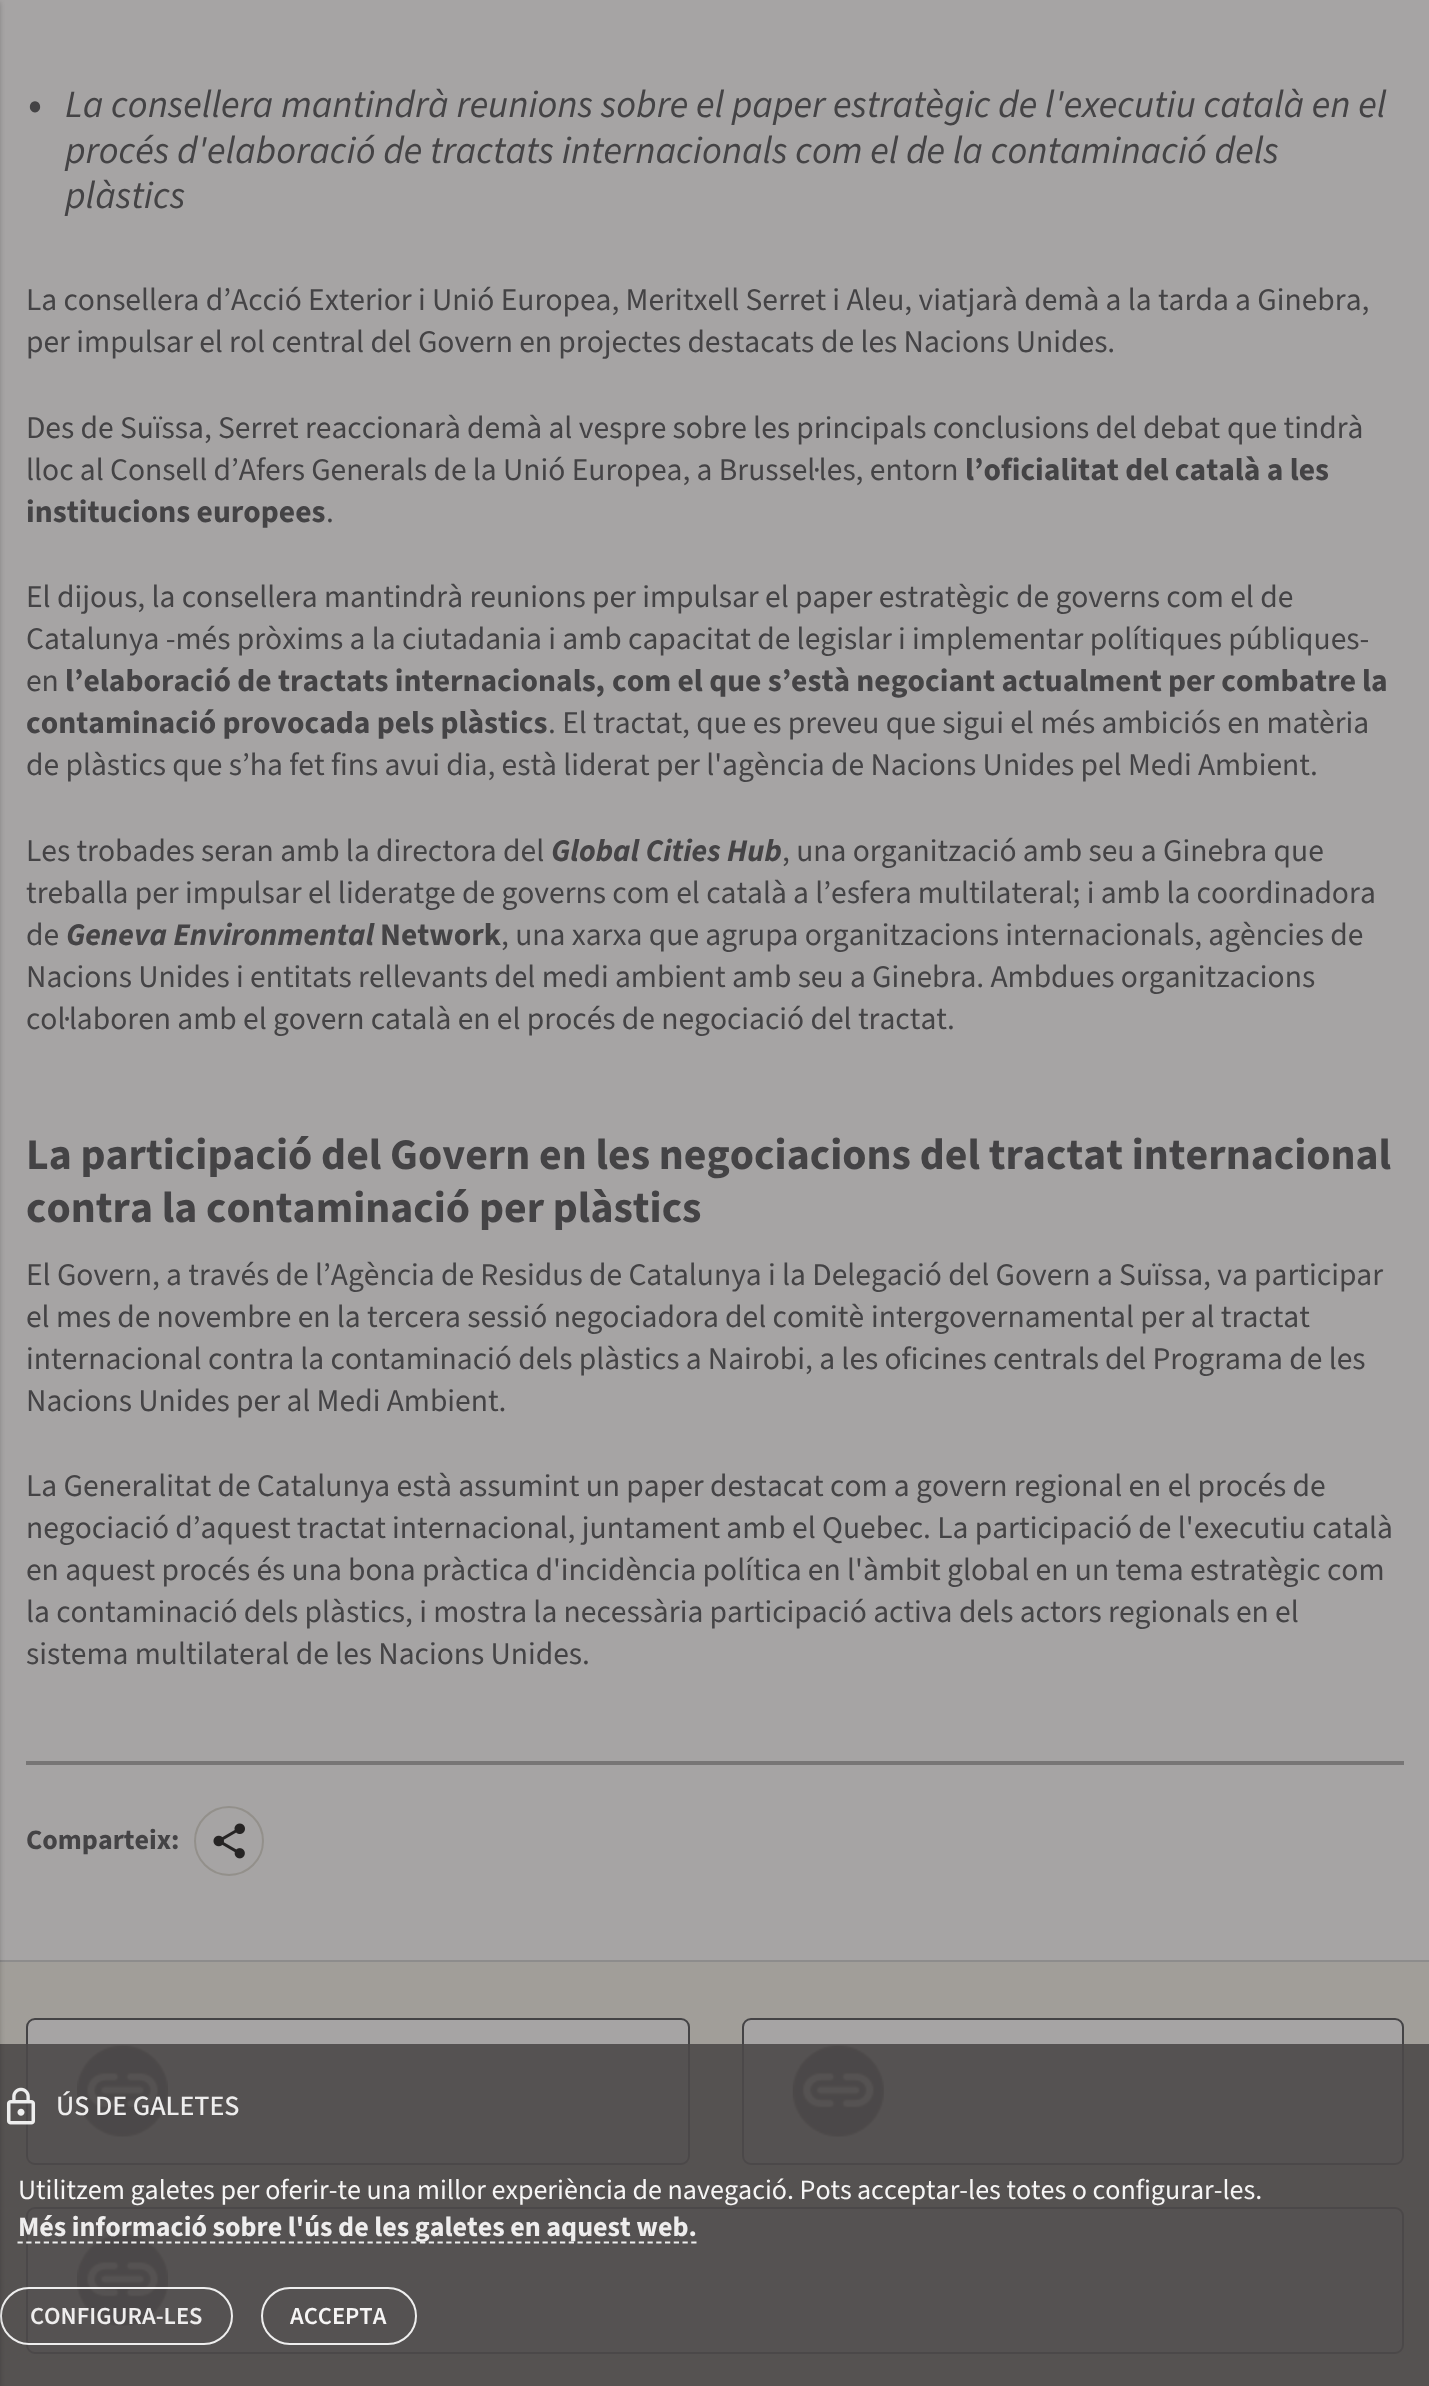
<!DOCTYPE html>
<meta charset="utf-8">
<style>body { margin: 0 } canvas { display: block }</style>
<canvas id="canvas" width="1429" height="2386"></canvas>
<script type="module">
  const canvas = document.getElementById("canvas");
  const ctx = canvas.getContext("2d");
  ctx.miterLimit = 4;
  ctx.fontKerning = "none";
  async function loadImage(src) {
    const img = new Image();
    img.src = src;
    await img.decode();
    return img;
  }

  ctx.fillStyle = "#a6a4a4";
  ctx.fillRect(0, 0, 1429, 2386);
  ctx.fillStyle = "#8d8c8c";
  ctx.fillRect(0, 1960, 1429, 2);
  ctx.fillStyle = "#a19e99";
  ctx.fillRect(0, 1962, 1429, 424);
  ctx.fillStyle = "#a6a4a4";
  ctx.beginPath();
  ctx.roundRect(27, 2019, 662, 145, 8);
  ctx.fill();
  ctx.strokeStyle = "#444345";
  ctx.lineWidth = 2;
  ctx.stroke();
  ctx.drawImage(await loadImage("img2.png"), 77, 2045, 91, 92);
  ctx.beginPath();
  ctx.roundRect(743, 2019, 660, 145, 8);
  ctx.fill();
  ctx.stroke();
  ctx.drawImage(await loadImage("img3.png"), 792, 2045, 92, 92);
  ctx.beginPath();
  ctx.roundRect(27, 2208, 1376, 145, 8);
  ctx.fill();
  ctx.stroke();
  ctx.drawImage(await loadImage("img4.png"), 77, 2234, 91, 92);
  ctx.fillStyle = "rgba(76, 73, 73, 0.9)";
  ctx.fillRect(0, 2044, 1429, 342);
  ctx.drawImage(await loadImage("img5.png"), 6, 2087, 30, 38);
  ctx.beginPath();
  ctx.roundRect(1, 2288, 231, 56, 28);
  ctx.strokeStyle = "rgba(255, 255, 255, 0.9)";
  ctx.stroke();
  ctx.fillStyle = "rgba(0, 0, 0, 0.2)";
  ctx.filter = "blur(2.5px)";
  ctx.beginPath();
  ctx.rect(-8, 2, 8, 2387);
  ctx.fill();
  ctx.filter = "none";
  ctx.font = "46px 'Source Sans 3'";
  ctx.fillStyle = "#444345";
  ctx.fillText("•", 28, 119);
  ctx.font = "italic 38.5px 'Source Sans 3'";
  ctx.fillText("La consellera mantindrà reunions sobre el paper estratègic de l'executiu català en el", 65, 117);
  ctx.fillText("procés d'elaboració de tractats internacionals com el de la contaminació dels", 65, 163);
  ctx.fillText("plàstics", 65, 208);
  ctx.font = "31.5px 'Source Sans 3'";
  ctx.fillText("La consellera d’Acció Exterior", 26, 310);
  ctx.fillText("i Unió Europea, Meritxell Serret i Aleu, viatjarà demà a la tarda a Ginebra,", 418, 310);
  ctx.fillText("per impulsar el rol central del Govern en projectes destacats", 26, 352);
  ctx.fillText("de les Nacions Unides.", 821, 352);
  ctx.fillText("Des de Suïssa, Serret reaccionarà demà al vespre sobre les principals conclusions del debat", 26, 438);
  ctx.fillText("que tindrà", 1227, 438);
  ctx.fillText("lloc al Consell d’Afers Generals de la Unió Europea, a Brussel·les, entorn", 26, 480);
  ctx.font = "bold 31.5px 'Source Sans 3'";
  ctx.fillText("l’oficialitat del català a les", 965, 480);
  ctx.fillText("institucions europees", 26, 522);
  ctx.font = "31.5px 'Source Sans 3'";
  ctx.fillText(".", 326, 522);
  ctx.fillText("El dijous, la consellera mantindrà reunions per impulsar el paper estratègic", 26, 607);
  ctx.fillText("de governs com el de", 1016, 607);
  ctx.fillText("Catalunya -més pròxims a la ciutadania i amb capacitat de legislar", 26, 649);
  ctx.fillText("i implementar polítiques públiques-", 898, 649);
  ctx.fillText("en", 26, 691);
  ctx.font = "bold 31.5px 'Source Sans 3'";
  ctx.fillText("l’elaboració de tractats internacionals,", 65, 691);
  ctx.fillText("com el que s’està negociant actualment per combatre", 612, 691);
  ctx.fillText("la", 1362, 691);
  ctx.fillText("contaminació provocada pels plàstics", 26, 733);
  ctx.font = "31.5px 'Source Sans 3'";
  ctx.fillText(". El tractat, que es preveu que sigui el més ambiciós en matèria", 548, 733);
  ctx.fillText("de plàstics que s’ha fet fins avui dia, està liderat per l'agència de Nacions Unides pel Medi Ambient.", 26, 775);
  ctx.fillText("Les trobades seran amb la directora del", 26, 861);
  ctx.font = "italic bold 31.5px 'Source Sans 3'";
  ctx.fillText("Global Cities Hub", 551, 861);
  ctx.font = "31.5px 'Source Sans 3'";
  ctx.fillText(", una organització amb seu a Ginebra que", 782, 861);
  ctx.fillText("treballa per impulsar el lideratge de governs com el català", 26, 903);
  ctx.fillText("a l’esfera multilateral; i amb la coordinadora", 793, 903);
  ctx.fillText("de", 26, 945);
  ctx.font = "italic bold 31.5px 'Source Sans 3'";
  ctx.fillText("Geneva Environmental", 66, 945);
  ctx.font = "bold 31.5px 'Source Sans 3'";
  ctx.fillText("Network", 380, 945);
  ctx.font = "31.5px 'Source Sans 3'";
  ctx.fillText(", una xarxa que agrupa organitzacions internacionals, agències de", 501, 945);
  ctx.fillText("Nacions Unides i entitats rellevants del medi ambient amb seu a Ginebra. Ambdues organitzacions", 26, 987);
  ctx.fillText("col·laboren amb el govern català en el procés de negociació del tractat.", 26, 1029);
  ctx.font = "bold 43.75px 'Source Sans 3'";
  ctx.fillText("La participació del Govern en les negociacions del tractat internacional", 26, 1169);
  ctx.fillText("contra la contaminació per plàstics", 26, 1222);
  ctx.font = "31.5px 'Source Sans 3'";
  ctx.fillText("El Govern, a través de l’Agència de Residus de Catalunya", 26, 1285);
  ctx.fillText("i la Delegació del Govern a Suïssa, va participar", 768, 1285);
  ctx.fillText("el mes de novembre en la tercera sessió negociadora del comitè", 26, 1327);
  ctx.fillText("intergovernamental per al tractat", 871, 1327);
  ctx.fillText("internacional contra la contaminació dels plàstics a Nairobi, a les oficines centrals", 26, 1369);
  ctx.fillText("del Programa de les", 1105, 1369);
  ctx.fillText("Nacions Unides per al Medi Ambient.", 26, 1411);
  ctx.fillText("La Generalitat de Catalunya està assumint un paper", 26, 1496);
  ctx.fillText("destacat com a govern regional en el procés de", 710, 1496);
  ctx.fillText("negociació d’aquest tractat", 26, 1538);
  ctx.fillText("internacional, juntament amb el Quebec. La participació de l'executiu català", 392, 1538);
  ctx.fillText("en aquest procés és una bona pràctica d'incidència política en l'àmbit global en un tema estratègic", 26, 1580);
  ctx.fillText("com", 1327, 1580);
  ctx.fillText("la contaminació dels plàstics, i mostra la necessària participació activa", 26, 1622);
  ctx.fillText("dels actors regionals en el", 959, 1622);
  ctx.fillText("sistema multilateral de les Nacions Unides.", 26, 1664);
  ctx.fillStyle = "#777575";
  ctx.fillRect(26, 1761, 1378, 4);
  ctx.font = "bold 28px 'Source Sans 3'";
  ctx.fillStyle = "#444345";
  ctx.fillText("Comparteix:", 26, 1849);
  ctx.beginPath();
  ctx.arc(229, 1841, 34, 0, Math.PI * 2);
  ctx.strokeStyle = "#93908b";
  ctx.stroke();
  ctx.drawImage(await loadImage("img1.png"), 213, 1823, 32, 36);
  ctx.font = "500 28px 'Source Sans 3'";
  ctx.fillStyle = "#eeeded";
  ctx.fillText("ÚS DE GALETES", 56, 2115);
  ctx.font = "28px 'Source Sans 3'";
  ctx.fillStyle = "#f6f5f5";
  ctx.fillText("Utilitzem galetes per oferir-te una millor experiència de navegació. Pots", 18, 2199);
  ctx.fillText("acceptar-les totes o configurar-les.", 857, 2199);
  ctx.beginPath();
  ctx.moveTo(17.5, 2242.5);
  ctx.lineTo(696.5, 2242.5);
  ctx.strokeStyle = "rgba(255, 255, 255, 0.9)";
  ctx.lineWidth = 1.8;
  ctx.setLineDash([5.25, 3.5]);
  ctx.stroke();
  ctx.font = "bold 28px 'Source Sans 3'";
  ctx.fillStyle = "#eeeded";
  ctx.fillText("Més informació sobre l'ús de les galetes en aquest web.", 18, 2236);
  ctx.font = "600 24.5px 'Source Sans 3'";
  ctx.fillText("CONFIGURA-LES", 30, 2324);
  ctx.beginPath();
  ctx.roundRect(262, 2288, 154, 56, 28);
  ctx.lineWidth = 2;
  ctx.setLineDash([]);
  ctx.stroke();
  ctx.fillStyle = "#f6f5f5";
  ctx.fillText("ACCEPTA", 290, 2324);
</script>
